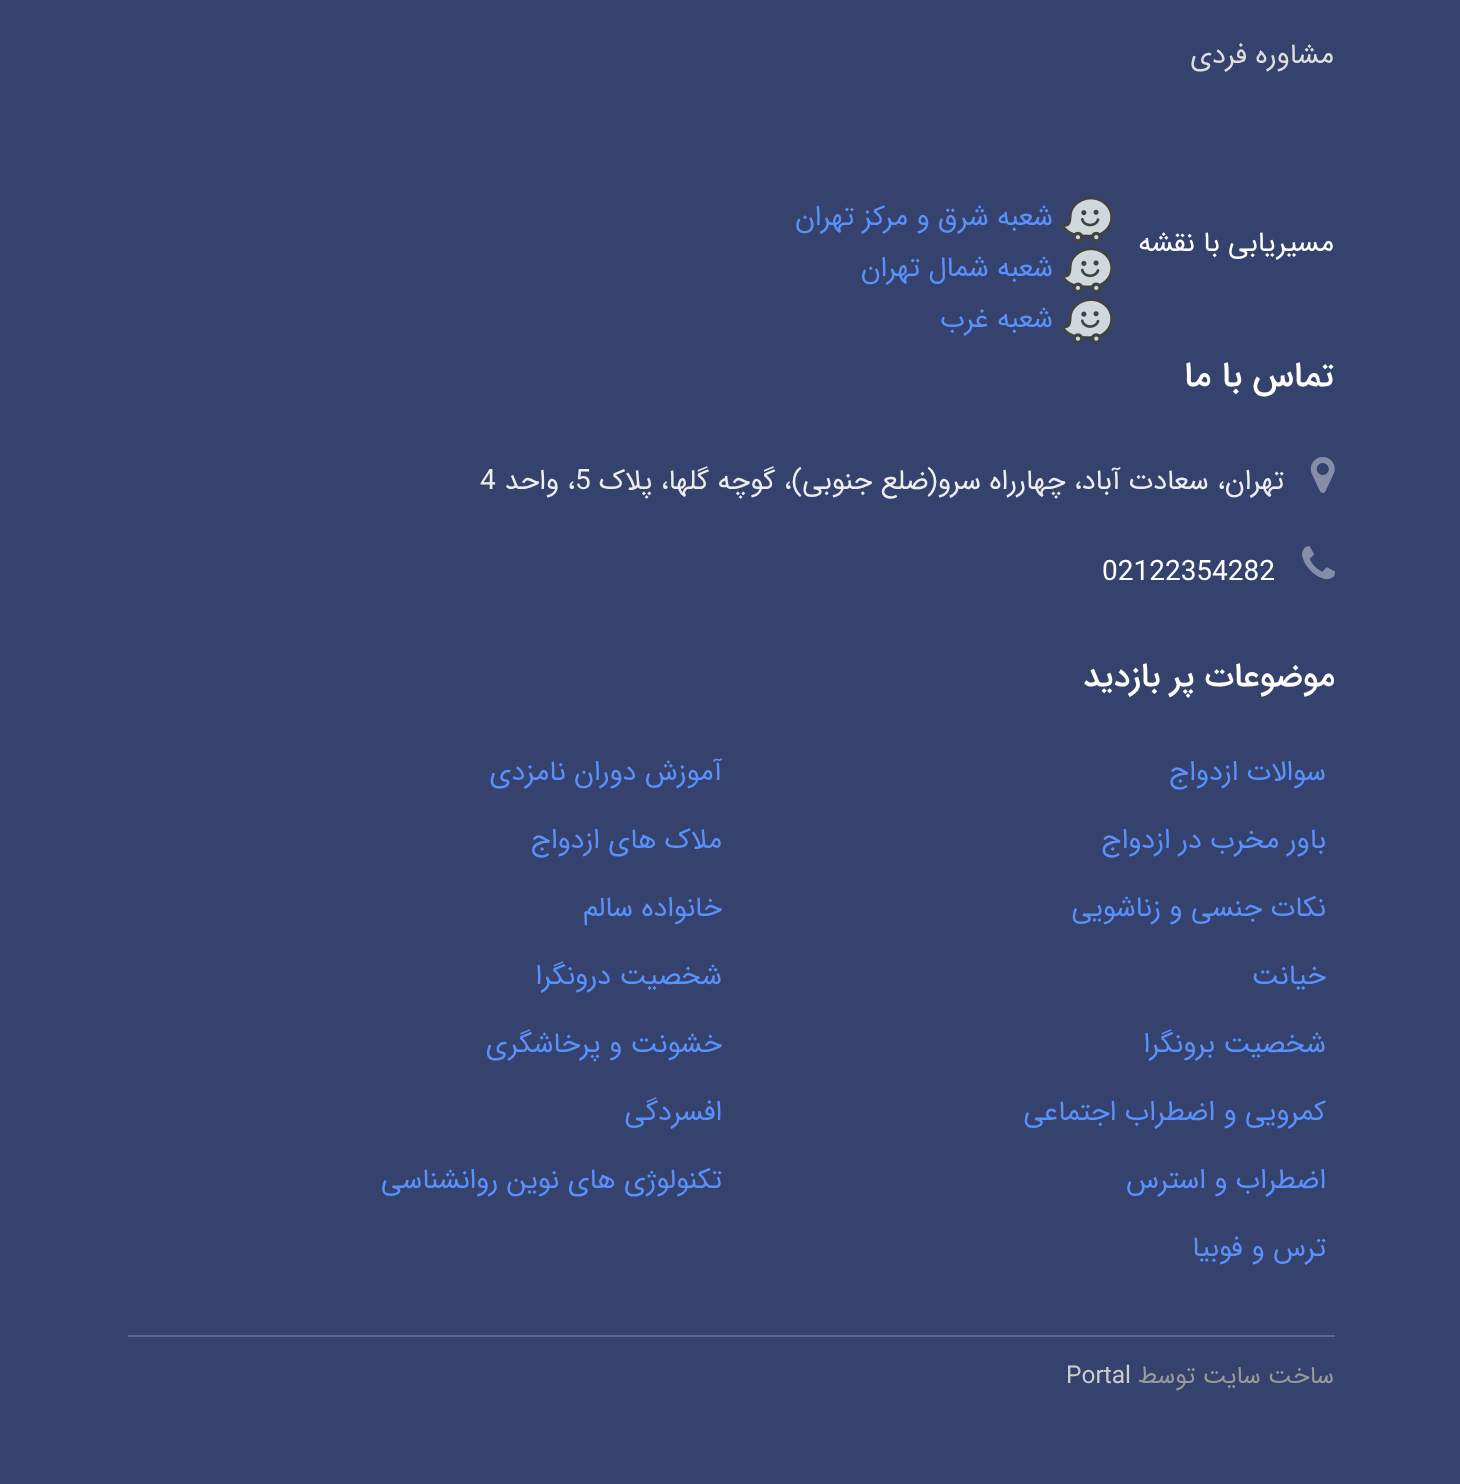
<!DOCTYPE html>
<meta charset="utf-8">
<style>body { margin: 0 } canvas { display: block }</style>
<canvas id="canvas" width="1460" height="1484"></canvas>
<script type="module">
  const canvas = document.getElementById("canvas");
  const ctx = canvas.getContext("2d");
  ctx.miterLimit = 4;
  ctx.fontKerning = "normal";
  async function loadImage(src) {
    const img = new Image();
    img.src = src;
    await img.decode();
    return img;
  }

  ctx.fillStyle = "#35426d";
  ctx.fillRect(0, 0, 1460, 1484);
  ctx.direction = "rtl";
  ctx.font = "28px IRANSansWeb";
  ctx.fillStyle = "#dddddd";
  ctx.fillText("مشاوره فردی", 1334, 63);
  ctx.fillStyle = "#ffffff";
  ctx.fillText("مسیریابی با نقشه", 1334, 251);
  ctx.drawImage(await loadImage("img1.png"), 1062, 196, 51, 47);
  ctx.fillStyle = "#5a90f9";
  ctx.fillText("شعبه شرق و مرکز تهران", 1053, 225);
  ctx.drawImage(await loadImage("img2.png"), 1062, 247, 51, 47);
  ctx.fillText("شعبه شمال تهران", 1053, 276);
  ctx.drawImage(await loadImage("img3.png"), 1062, 298, 51, 46);
  ctx.fillText("شعبه غرب", 1053, 327);
  ctx.font = "500 35px IRANSansWeb";
  ctx.fillStyle = "#ffffff";
  ctx.fillText("تماس با ما", 1334, 386);
  ctx.drawImage(await loadImage("img4.png"), 1310, 457, 25, 36);
  ctx.font = "28px IRANSansWeb";
  ctx.fillStyle = "#eeeeee";
  ctx.fillText("تهران، سعادت آباد، چهارراه سرو(ضلع جنوبی)، گوچه گلها، پلاک", 1284, 489);
  ctx.direction = "ltr";
  ctx.fillText("5", 575, 489);
  ctx.direction = "rtl";
  ctx.fillText("، واحد", 575, 489);
  ctx.direction = "ltr";
  ctx.fillText("4", 480, 489);
  ctx.drawImage(await loadImage("img5.png"), 1302, 546, 33, 34);
  ctx.fillStyle = "#ffffff";
  ctx.fillText("02122354282", 1102, 580);
  ctx.direction = "rtl";
  ctx.font = "500 33.5px IRANSansWeb";
  ctx.fillText("موضوعات پر بازدید", 1335, 686);
  ctx.font = "28px IRANSansWeb";
  ctx.fillStyle = "#5a90f9";
  ctx.fillText("سوالات ازدواج", 1326, 780);
  ctx.fillText("آموزش دوران نامزدی", 722, 780);
  ctx.fillText("باور مخرب در ازدواج", 1326, 848);
  ctx.fillText("ملاک های ازدواج", 722, 848);
  ctx.fillText("نکات جنسی و زناشویی", 1326, 916);
  ctx.fillText("خانواده سالم", 722, 916);
  ctx.fillText("خیانت", 1326, 984);
  ctx.fillText("شخصیت درونگرا", 722, 984);
  ctx.fillText("شخصیت برونگرا", 1326, 1052);
  ctx.fillText("خشونت و پرخاشگری", 722, 1052);
  ctx.fillText("کمرویی و اضطراب اجتماعی", 1326, 1120);
  ctx.fillText("افسردگی", 722, 1120);
  ctx.fillText("اضطراب و استرس", 1326, 1188);
  ctx.fillText("تکنولوژی های نوین روانشناسی", 722, 1188);
  ctx.fillText("ترس و فوبیا", 1326, 1256);
  ctx.fillStyle = "#5d688a";
  ctx.fillRect(128, 1335, 1207, 2);
  ctx.font = "24.5px IRANSansWeb";
  ctx.fillStyle = "#999999";
  ctx.fillText("ساخت سایت توسط", 1334, 1383);
  ctx.direction = "ltr";
  ctx.fillStyle = "#cccccc";
  ctx.fillText("Portal", 1066, 1383);
</script>
